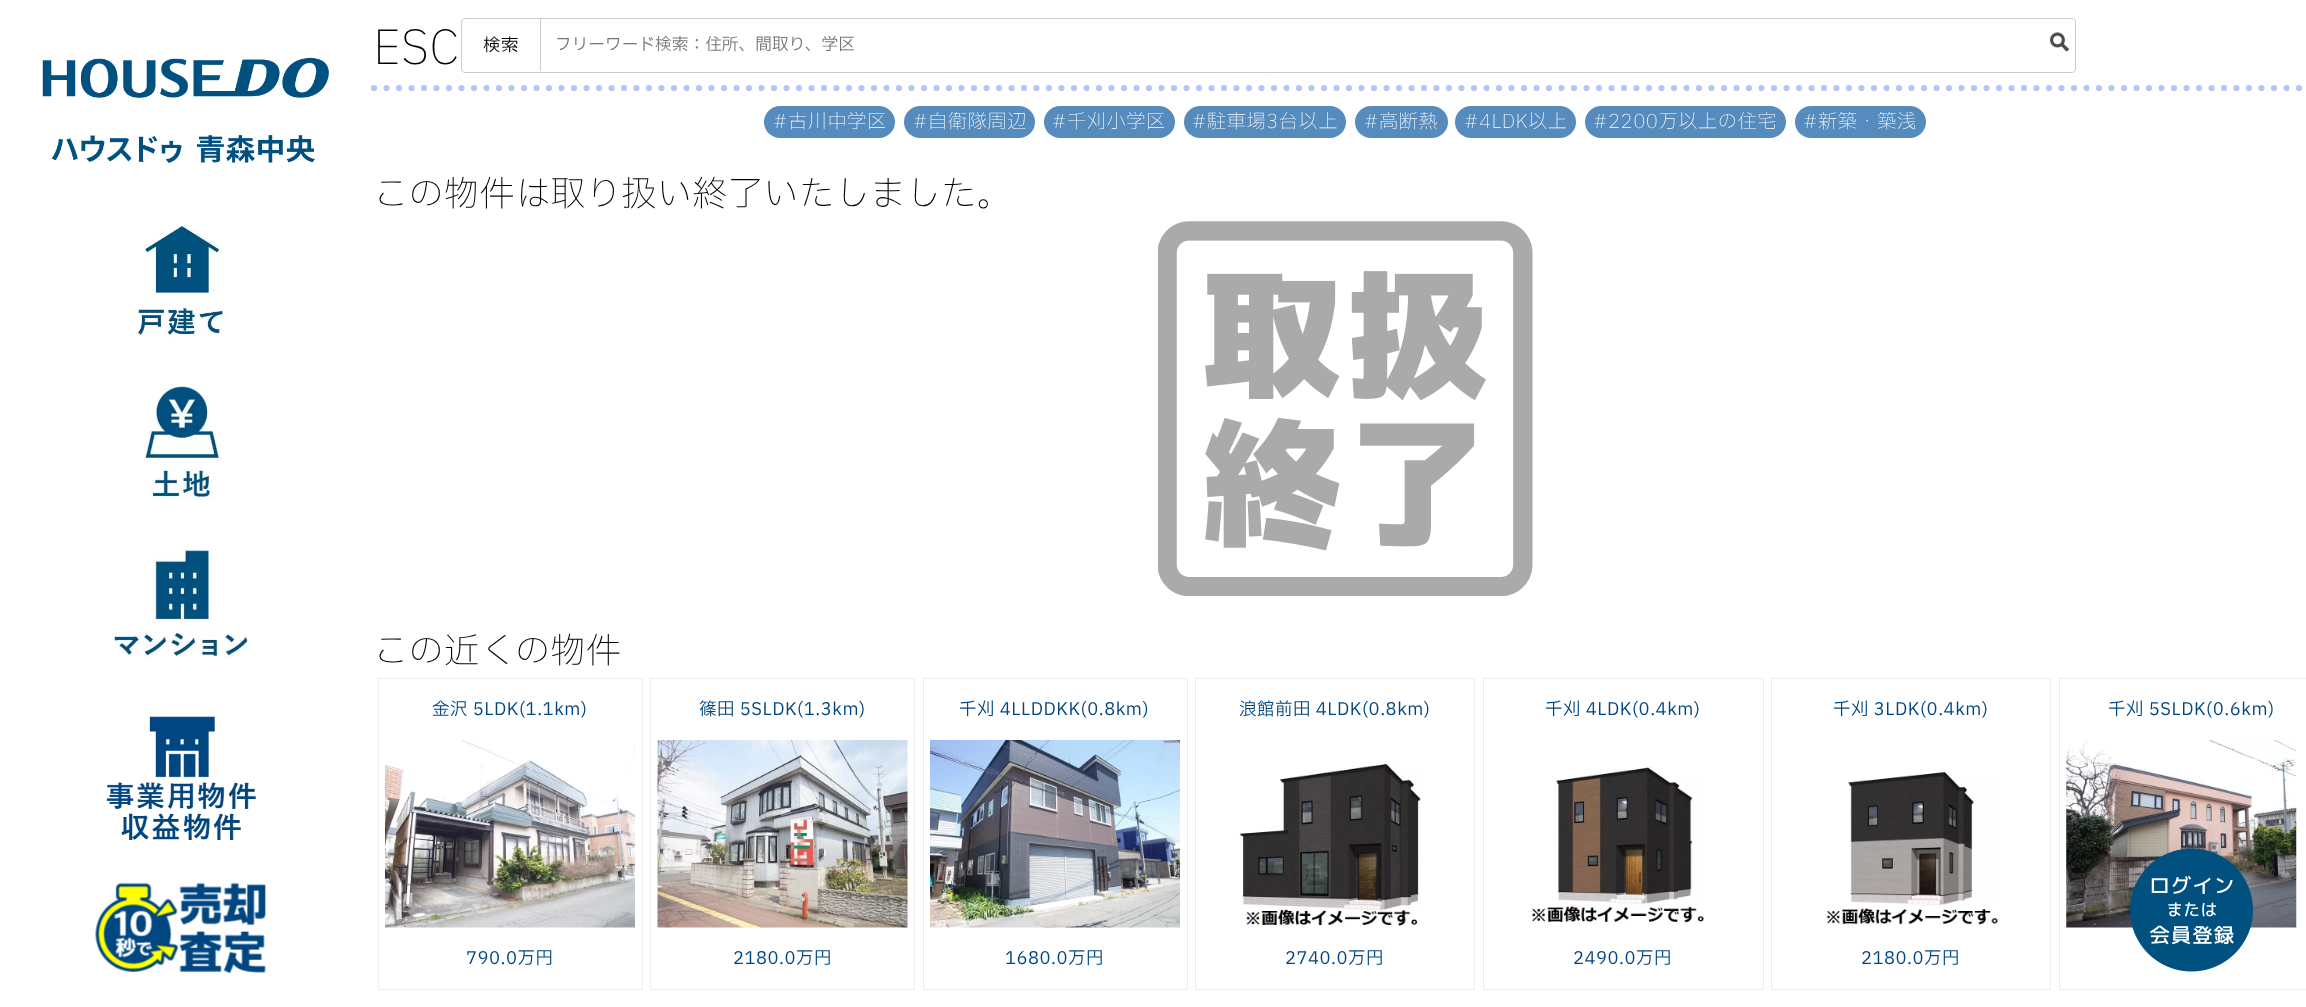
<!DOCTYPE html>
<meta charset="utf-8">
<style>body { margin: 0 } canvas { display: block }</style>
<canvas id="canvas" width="2306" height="1007"></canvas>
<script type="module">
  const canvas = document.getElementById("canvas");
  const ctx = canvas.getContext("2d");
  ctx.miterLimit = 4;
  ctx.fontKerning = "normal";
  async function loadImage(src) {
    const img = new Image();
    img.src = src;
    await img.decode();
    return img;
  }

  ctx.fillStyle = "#ffffff";
  ctx.fillRect(0, 0, 2306, 1007);
  ctx.beginPath();
  ctx.moveTo(374, 88);
  ctx.lineTo(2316, 88);
  ctx.strokeStyle = "#b3c7f5";
  ctx.lineWidth = 6.2;
  ctx.lineCap = "round";
  ctx.setLineDash([0, 12.5]);
  ctx.stroke();
  ctx.letterSpacing = "0.5px";
  ctx.font = "200 47px IBM Plex Sans JP";
  ctx.fillStyle = "#000000";
  ctx.fillText("ESC", 373, 64);
  ctx.fillStyle = "#568bbd";
  ctx.beginPath();
  ctx.roundRect(764, 106, 131, 32, 16);
  ctx.fill();
  ctx.font = "200 19.25px IBM Plex Sans JP";
  ctx.fillStyle = "#ffffff";
  ctx.fillText("#古川中学区", 773, 128);
  ctx.fillStyle = "#568bbd";
  ctx.beginPath();
  ctx.roundRect(904, 106, 131, 32, 16);
  ctx.fill();
  ctx.fillStyle = "#ffffff";
  ctx.fillText("#自衛隊周辺", 913, 128);
  ctx.fillStyle = "#568bbd";
  ctx.beginPath();
  ctx.roundRect(1044, 106, 131, 32, 16);
  ctx.fill();
  ctx.fillStyle = "#ffffff";
  ctx.fillText("#千刈小学区", 1052, 128);
  ctx.fillStyle = "#568bbd";
  ctx.beginPath();
  ctx.roundRect(1184, 106, 162, 32, 16);
  ctx.fill();
  ctx.fillStyle = "#ffffff";
  ctx.fillText("#駐車場3台以上", 1192, 128);
  ctx.fillStyle = "#568bbd";
  ctx.beginPath();
  ctx.roundRect(1355, 106, 93, 32, 16);
  ctx.fill();
  ctx.fillStyle = "#ffffff";
  ctx.fillText("#高断熱", 1364, 128);
  ctx.fillStyle = "#568bbd";
  ctx.beginPath();
  ctx.roundRect(1455, 106, 121, 32, 16);
  ctx.fill();
  ctx.fillStyle = "#ffffff";
  ctx.fillText("#4LDK以上", 1464, 128);
  ctx.fillStyle = "#568bbd";
  ctx.beginPath();
  ctx.roundRect(1585, 106, 201, 32, 16);
  ctx.fill();
  ctx.fillStyle = "#ffffff";
  ctx.fillText("#2200万以上の住宅", 1593, 128);
  ctx.fillStyle = "#568bbd";
  ctx.beginPath();
  ctx.roundRect(1795, 106, 131, 32, 16);
  ctx.fill();
  ctx.fillStyle = "#ffffff";
  ctx.fillText("#新築・築浅", 1803, 128);
  ctx.font = "200 35px IBM Plex Sans JP";
  ctx.fillStyle = "#000000";
  ctx.fillText("この物件は取り扱い終了いたしました。", 373, 206);
  ctx.drawImage(await loadImage("img1.png"), 1158, 221, 375, 375);
  ctx.fillText("この近くの物件", 373, 663);
  ctx.strokeStyle = "#eeeeee";
  ctx.lineWidth = 1;
  ctx.setLineDash([]);
  ctx.strokeRect(378.5, 678.5, 264, 311);
  ctx.font = "17.5px IBM Plex Sans JP";
  ctx.fillStyle = "#004680";
  ctx.fillText("金沢 5LDK(1.1km)", 432, 715);
  ctx.drawImage(await loadImage("img2.png"), 385, 740, 250, 188);
  ctx.fillText("790.0万円", 466, 964);
  ctx.strokeRect(650.5, 678.5, 264, 311);
  ctx.fillText("篠田 5SLDK(1.3km)", 699, 715);
  ctx.drawImage(await loadImage("img3.png"), 657, 740, 251, 188);
  ctx.fillText("2180.0万円", 733, 964);
  ctx.strokeRect(923.5, 678.5, 264, 311);
  ctx.fillText("千刈 4LLDDKK(0.8km)", 959, 715);
  ctx.drawImage(await loadImage("img4.png"), 930, 740, 250, 188);
  ctx.fillText("1680.0万円", 1005, 964);
  ctx.strokeRect(1195.5, 678.5, 279, 311);
  ctx.fillText("浪館前田 4LDK(0.8km)", 1239, 715);
  ctx.drawImage(await loadImage("img5.png"), 1239, 763, 182, 164);
  ctx.fillText("2740.0万円", 1285, 964);
  ctx.strokeRect(1483.5, 678.5, 280, 311);
  ctx.fillText("千刈 4LDK(0.4km)", 1545, 715);
  ctx.drawImage(await loadImage("img6.png"), 1531, 767, 175, 157);
  ctx.fillText("2490.0万円", 1573, 964);
  ctx.strokeRect(1771.5, 678.5, 279, 311);
  ctx.fillText("千刈 3LDK(0.4km)", 1833, 715);
  ctx.drawImage(await loadImage("img7.png"), 1826, 771, 173, 154);
  ctx.fillText("2180.0万円", 1861, 964);
  ctx.strokeRect(2059.5, 678.5, 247, 311);
  ctx.fillText("千刈 5SLDK(0.6km)", 2108, 715);
  ctx.drawImage(await loadImage("img8.png"), 2066, 740, 231, 188);
  ctx.beginPath();
  ctx.roundRect(461.5, 18.5, 1614, 54, 3.5);
  ctx.strokeStyle = "#cccccc";
  ctx.stroke();
  ctx.fillStyle = "#000000";
  ctx.fillText("検索", 483, 51);
  ctx.fillStyle = "#cccccc";
  ctx.fillRect(540, 19, 1, 52);
  ctx.letterSpacing = "0px";
  ctx.font = "16.7px IBM Plex Sans JP";
  ctx.fillStyle = "#757575";
  ctx.fillText("フリーワード検索：住所、間取り、学区", 555, 50);
  ctx.drawImage(await loadImage("img9.png"), 2050, 32, 19, 20);
  ctx.drawImage(await loadImage("img10.png"), 42, 57, 287, 106);
  ctx.drawImage(await loadImage("img11.png"), 136, 225, 90, 113);
  ctx.drawImage(await loadImage("img12.png"), 144, 384, 78, 116);
  ctx.drawImage(await loadImage("img13.png"), 114, 549, 134, 108);
  ctx.drawImage(await loadImage("img14.png"), 106, 716, 150, 124);
  ctx.drawImage(await loadImage("img15.png"), 95, 882, 171, 92);
  ctx.drawImage(await loadImage("img16.png"), 2130, 848, 123, 124);
</script>
